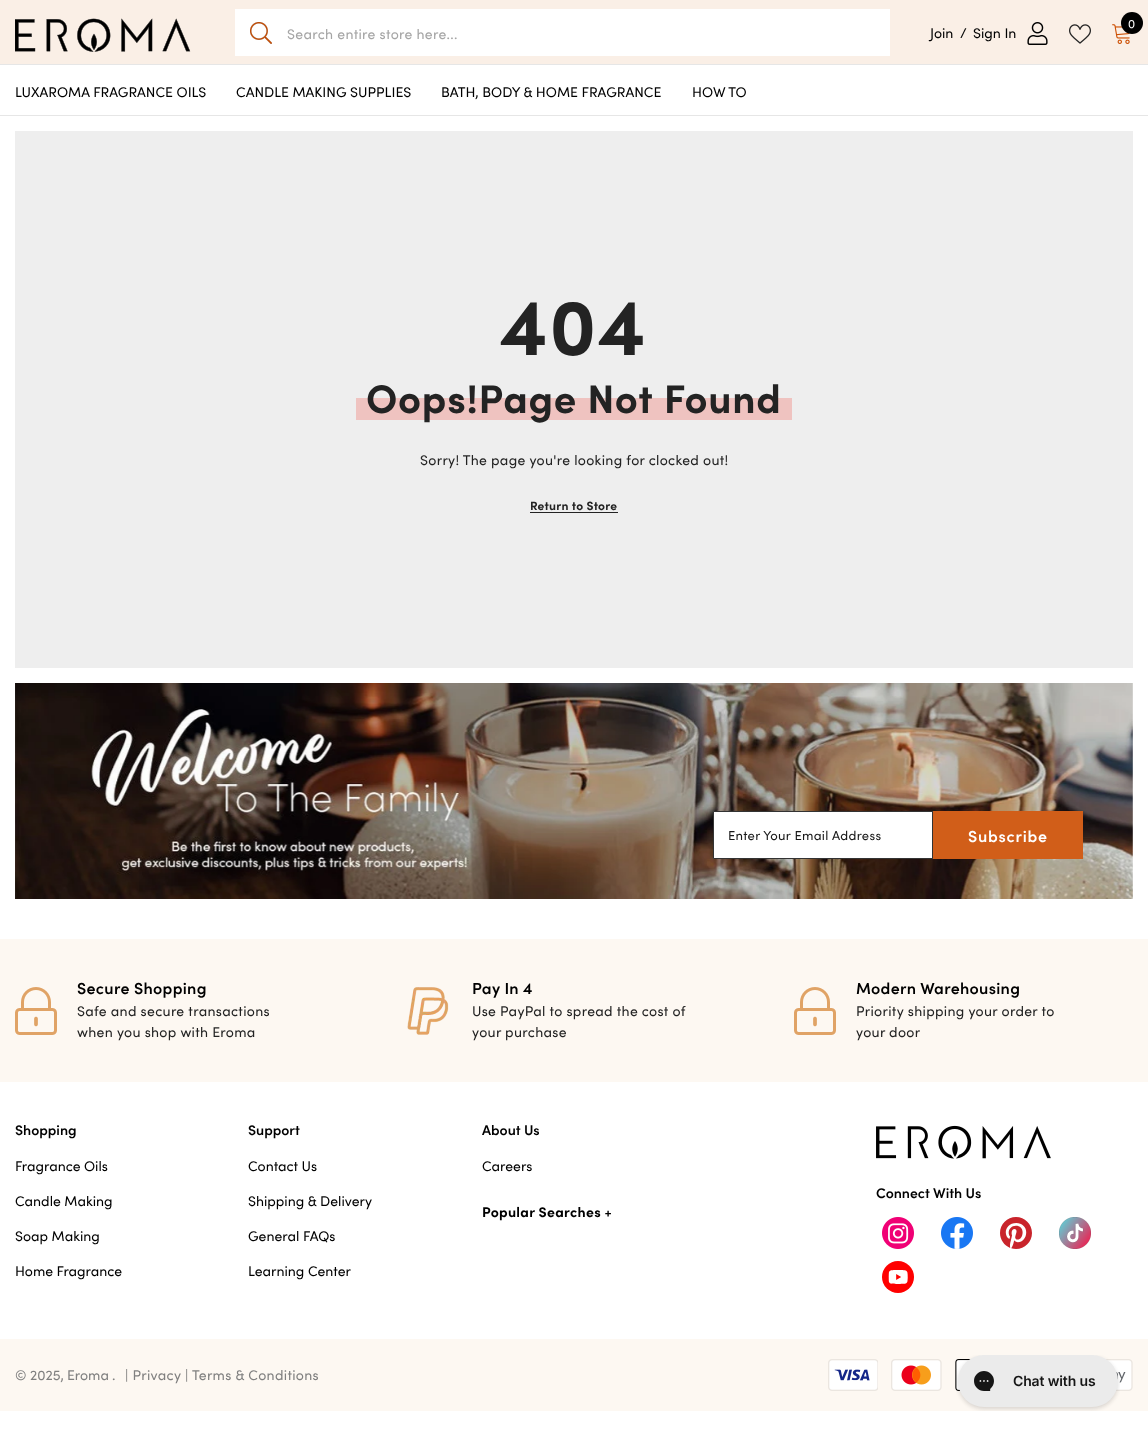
<!DOCTYPE html>
<meta charset="utf-8">
<style>body { margin: 0 } canvas { display: block }</style>
<canvas id="canvas" width="1148" height="1434"></canvas>
<script type="module">
  const canvas = document.getElementById("canvas");
  const ctx = canvas.getContext("2d");
  ctx.miterLimit = 4;
  ctx.fontKerning = "normal";
  async function loadImage(src) {
    const img = new Image();
    img.src = src;
    await img.decode();
    return img;
  }

  ctx.fillStyle = "#ffffff";
  ctx.fillRect(0, 0, 1148, 1434);
  ctx.fillStyle = "#faefe6";
  ctx.fillRect(0, 0, 1148, 64);
  ctx.drawImage(await loadImage("img1.png"), 15, 18, 176, 34);
  ctx.fillStyle = "#ffffff";
  ctx.fillRect(235, 9, 655, 47);
  ctx.drawImage(await loadImage("img2.png"), 250, 22, 22, 22);
  ctx.letterSpacing = "0.3px";
  ctx.font = "14px Sofia";
  ctx.fillStyle = "#a5a5a5";
  ctx.fillText("Search entire store here...", 287, 39);
  ctx.letterSpacing = "0px";
  ctx.fillStyle = "#000000";
  ctx.fillText("Join", 930, 38);
  ctx.letterSpacing = "0.3px";
  ctx.fillText("/", 960, 38);
  ctx.letterSpacing = "0px";
  ctx.fillText("Sign In", 973, 38);
  ctx.drawImage(await loadImage("img3.png"), 1027, 22, 21, 23);
  ctx.drawImage(await loadImage("img4.png"), 1069, 24, 22, 20);
  ctx.drawImage(await loadImage("img5.png"), 1112, 24, 18, 20);
  ctx.beginPath();
  ctx.arc(1132, 23, 11, 0, Math.PI * 2);
  ctx.fill();
  ctx.font = "12px Sofia";
  ctx.fillStyle = "#ffffff";
  ctx.fillText("0", 1128, 28);
  ctx.fillStyle = "#e6e6e6";
  ctx.fillRect(0, 64, 1148, 1);
  ctx.fillRect(0, 115, 1148, 1);
  ctx.font = "14px Sofia";
  ctx.fillStyle = "#000000";
  ctx.fillText("LUXAROMA FRAGRANCE OILS", 15, 97);
  ctx.fillText("CANDLE MAKING SUPPLIES", 236, 97);
  ctx.fillText("BATH, BODY & HOME FRAGRANCE", 441, 97);
  ctx.fillText("HOW TO", 692, 97);
  ctx.fillStyle = "#eeeeee";
  ctx.fillRect(15, 131, 1118, 537);
  ctx.letterSpacing = "1.5px";
  ctx.font = "bold 80px Sofia";
  ctx.fillStyle = "#232323";
  ctx.fillText("404", 500, 355);
  ctx.fillStyle = "#efc3c0";
  ctx.fillRect(356, 398, 436, 22);
  ctx.letterSpacing = "0.75px";
  ctx.font = "bold 40px Sofia";
  ctx.fillStyle = "#232323";
  ctx.fillText("Oops!Page Not Found", 366, 413);
  ctx.letterSpacing = "0.3px";
  ctx.font = "14px Sofia";
  ctx.fillText("Sorry! The page you're looking for clocked out!", 420, 465);
  ctx.letterSpacing = "0.25px";
  ctx.font = "bold 12px Sofia";
  ctx.fillText("Return to Store", 530, 510);
  ctx.fillRect(530, 512, 88, 1);
  ctx.drawImage(await loadImage("img6.png"), 15, 683, 1118, 216);
  ctx.fillStyle = "#ffffff";
  ctx.beginPath();
  ctx.rect(713.5, 811.5, 219, 47);
  ctx.fill();
  ctx.strokeStyle = "#333333";
  ctx.stroke();
  ctx.letterSpacing = "0.3px";
  ctx.font = "13px Sofia";
  ctx.fillStyle = "#191919";
  ctx.fillText("Enter Your Email Address", 728, 840);
  ctx.fillStyle = "#d15e19";
  ctx.fillRect(933, 811, 150, 48);
  ctx.letterSpacing = "0.75px";
  ctx.font = "600 16px Sofia";
  ctx.fillStyle = "#ffffff";
  ctx.fillText("Subscribe", 968, 842);
  ctx.fillStyle = "#fdf8f2";
  ctx.fillRect(0, 939, 1148, 143);
  ctx.drawImage(await loadImage("img7.png"), 15, 987, 42, 48);
  ctx.letterSpacing = "0.3px";
  ctx.fillStyle = "#000000";
  ctx.fillText("Secure Shopping", 77, 994);
  ctx.font = "14px Sofia";
  ctx.fillStyle = "#232323";
  ctx.fillText("Safe and secure transactions", 77, 1016);
  ctx.fillText("when you shop with Eroma", 77, 1037);
  ctx.drawImage(await loadImage("img8.png"), 407, 987, 42, 48);
  ctx.font = "600 16px Sofia";
  ctx.fillStyle = "#000000";
  ctx.fillText("Pay In 4", 472, 994);
  ctx.font = "14px Sofia";
  ctx.fillStyle = "#232323";
  ctx.fillText("Use PayPal to spread the cost of", 472, 1016);
  ctx.fillText("your purchase", 472, 1037);
  ctx.drawImage(await loadImage("img7.png"), 794, 987, 42, 48);
  ctx.font = "600 16px Sofia";
  ctx.fillStyle = "#000000";
  ctx.fillText("Modern Warehousing", 856, 994);
  ctx.font = "14px Sofia";
  ctx.fillStyle = "#232323";
  ctx.fillText("Priority shipping your order to", 856, 1016);
  ctx.fillText("your door", 856, 1037);
  ctx.letterSpacing = "0px";
  ctx.font = "600 14px Sofia";
  ctx.fillStyle = "#000000";
  ctx.fillText("Shopping", 15, 1135);
  ctx.font = "14px Sofia";
  ctx.fillText("Fragrance Oils", 15, 1171);
  ctx.fillText("Candle Making", 15, 1206);
  ctx.fillText("Soap Making", 15, 1241);
  ctx.fillText("Home Fragrance", 15, 1276);
  ctx.font = "600 14px Sofia";
  ctx.fillText("Support", 248, 1135);
  ctx.font = "14px Sofia";
  ctx.fillText("Contact Us", 248, 1171);
  ctx.fillText("Shipping & Delivery", 248, 1206);
  ctx.fillText("General FAQs", 248, 1241);
  ctx.fillText("Learning Center", 248, 1276);
  ctx.font = "600 14px Sofia";
  ctx.fillText("About Us", 482, 1135);
  ctx.font = "14px Sofia";
  ctx.fillText("Careers", 482, 1171);
  ctx.letterSpacing = "0.3px";
  ctx.font = "bold 14px Sofia";
  ctx.fillText("Popular Searches +", 482, 1217);
  ctx.drawImage(await loadImage("img9.png"), 876, 1125, 175, 34);
  ctx.letterSpacing = "0px";
  ctx.font = "600 14px Sofia";
  ctx.fillText("Connect With Us", 876, 1198);
  ctx.drawImage(await loadImage("img10.png"), 882, 1217, 32, 32);
  ctx.drawImage(await loadImage("img11.png"), 941, 1217, 32, 32);
  ctx.drawImage(await loadImage("img12.png"), 1000, 1217, 32, 32);
  ctx.drawImage(await loadImage("img13.png"), 1059, 1217, 32, 32);
  ctx.drawImage(await loadImage("img14.png"), 882, 1261, 32, 32);
  ctx.fillStyle = "#fdf8f2";
  ctx.fillRect(0, 1339, 1148, 72);
  ctx.font = "14px Sofia";
  ctx.fillStyle = "#808080";
  ctx.fillText("© 2025,", 15, 1380);
  ctx.fillText("Eroma", 67, 1380);
  ctx.fillText(".", 112, 1380);
  ctx.letterSpacing = "0.3px";
  ctx.fillText("| Privacy |", 125, 1380);
  ctx.fillText("Terms & Conditions", 192, 1380);
  ctx.drawImage(await loadImage("img15.png"), 828, 1359, 50, 32);
  ctx.drawImage(await loadImage("img16.png"), 891, 1359, 51, 32);
  ctx.drawImage(await loadImage("img17.png"), 955, 1359, 16, 32);
  ctx.drawImage(await loadImage("img18.png"), 1105, 1359, 28, 32);
  ctx.drawImage(await loadImage("img19.png"), 956, 1355, 164, 56);
</script>
